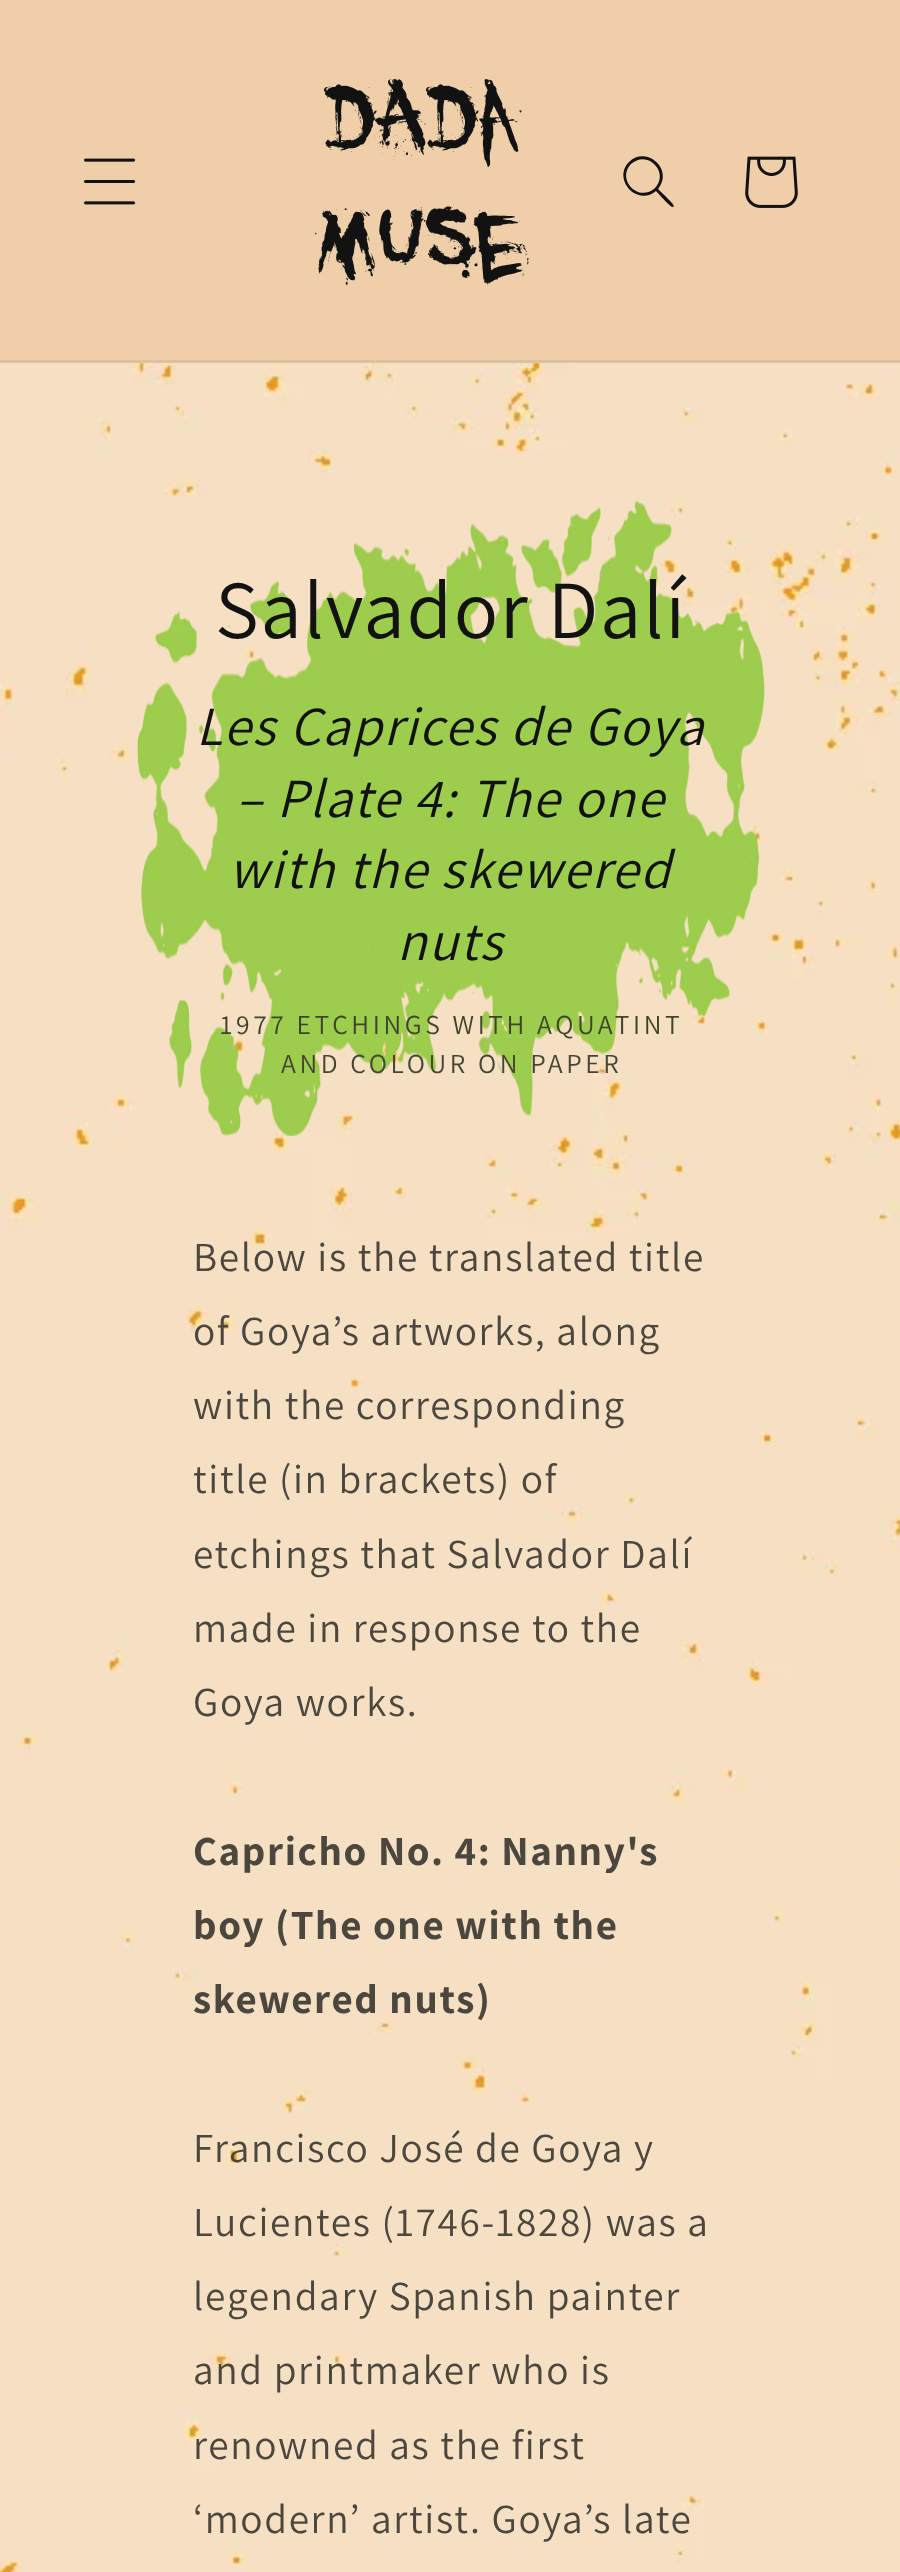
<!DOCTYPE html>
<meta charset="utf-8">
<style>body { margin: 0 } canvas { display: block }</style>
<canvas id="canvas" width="900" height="2572"></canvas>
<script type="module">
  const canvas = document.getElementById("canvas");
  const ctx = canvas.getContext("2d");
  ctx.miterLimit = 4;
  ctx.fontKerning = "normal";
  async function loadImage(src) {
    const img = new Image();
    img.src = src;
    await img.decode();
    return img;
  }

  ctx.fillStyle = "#efcfa9";
  ctx.fillRect(0, 0, 900, 2572);
  ctx.fillStyle = "#ddc09d";
  ctx.fillRect(0, 360, 900, 3);
  ctx.drawImage(await loadImage("img1.png"), 84, 158, 52, 47);
  ctx.letterSpacing = "1.65px";
  ctx.font = "132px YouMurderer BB";
  ctx.fillStyle = "#121212";
  ctx.fillText("dAda", 325, 144);
  ctx.fillText("mUse", 316, 276);
  ctx.beginPath();
  ctx.moveTo(655, 188);
  ctx.bezierCurveTo(639, 203, 616, 180, 631, 164);
  ctx.bezierCurveTo(647, 149, 670, 172, 655, 188);
  ctx.closePath();
  ctx.moveTo(656, 191);
  ctx.bezierCurveTo(637, 207, 612, 179, 629, 162);
  ctx.bezierCurveTo(647, 145, 674, 170, 658, 189);
  ctx.bezierCurveTo(660, 191, 674, 204, 674, 206);
  ctx.lineTo(673, 207);
  ctx.bezierCurveTo(671, 208, 658, 193, 656, 191);
  ctx.closePath();
  ctx.fill("evenodd");
  ctx.drawImage(await loadImage("img2.png"), 745, 156, 53, 52);
  ctx.drawImage(await loadImage("img3.png"), 0, 363, 900, 2209);
  ctx.drawImage(await loadImage("img4.png"), 137, 500, 628, 636);
  ctx.font = "82.5px Assistant";
  ctx.fillText("Salvador Dalí", 215, 638);
  ctx.font = "italic 55px Assistant";
  ctx.fillText("Les Caprices de Goya", 196, 745);
  ctx.fillText("– Plate 4: The one", 236, 817);
  ctx.fillText("with the skewered", 229, 888);
  ctx.fillText("nuts", 397, 960);
  ctx.letterSpacing = "3.6px";
  ctx.font = "27.5px Assistant";
  ctx.fillStyle = "#3e432d";
  ctx.fillText("1977 ETCHINGS WITH AQUATINT", 220, 1034);
  ctx.fillStyle = "#454436";
  ctx.fillText("AND COLOUR ON PAPER", 281, 1073);
  ctx.letterSpacing = "1.65px";
  ctx.font = "41.25px Assistant";
  ctx.fillStyle = "#4b463e";
  ctx.fillText("Below is the translated title", 193, 1271);
  ctx.fillText("of Goya’s artworks, along", 193, 1345);
  ctx.fillText("with the corresponding", 193, 1419);
  ctx.fillText("title (in brackets) of", 193, 1493);
  ctx.fillText("etchings that Salvador Dalí", 193, 1568);
  ctx.fillText("made in response to the", 193, 1642);
  ctx.fillText("Goya works.", 193, 1716);
  ctx.font = "bold 41.25px Assistant";
  ctx.fillText("Capricho No. 4: Nanny's", 193, 1865);
  ctx.fillText("boy (The one with the", 193, 1939);
  ctx.fillText("skewered nuts)", 193, 2013);
  ctx.font = "41.25px Assistant";
  ctx.fillText("Francisco José de Goya y", 193, 2162);
  ctx.fillText("Lucientes (1746-1828) was a", 193, 2236);
  ctx.fillText("legendary Spanish painter", 193, 2310);
  ctx.fillText("and printmaker who is", 193, 2384);
  ctx.fillText("renowned as the first", 193, 2459);
  ctx.fillText("‘modern’ artist. Goya’s late", 193, 2533);
</script>
